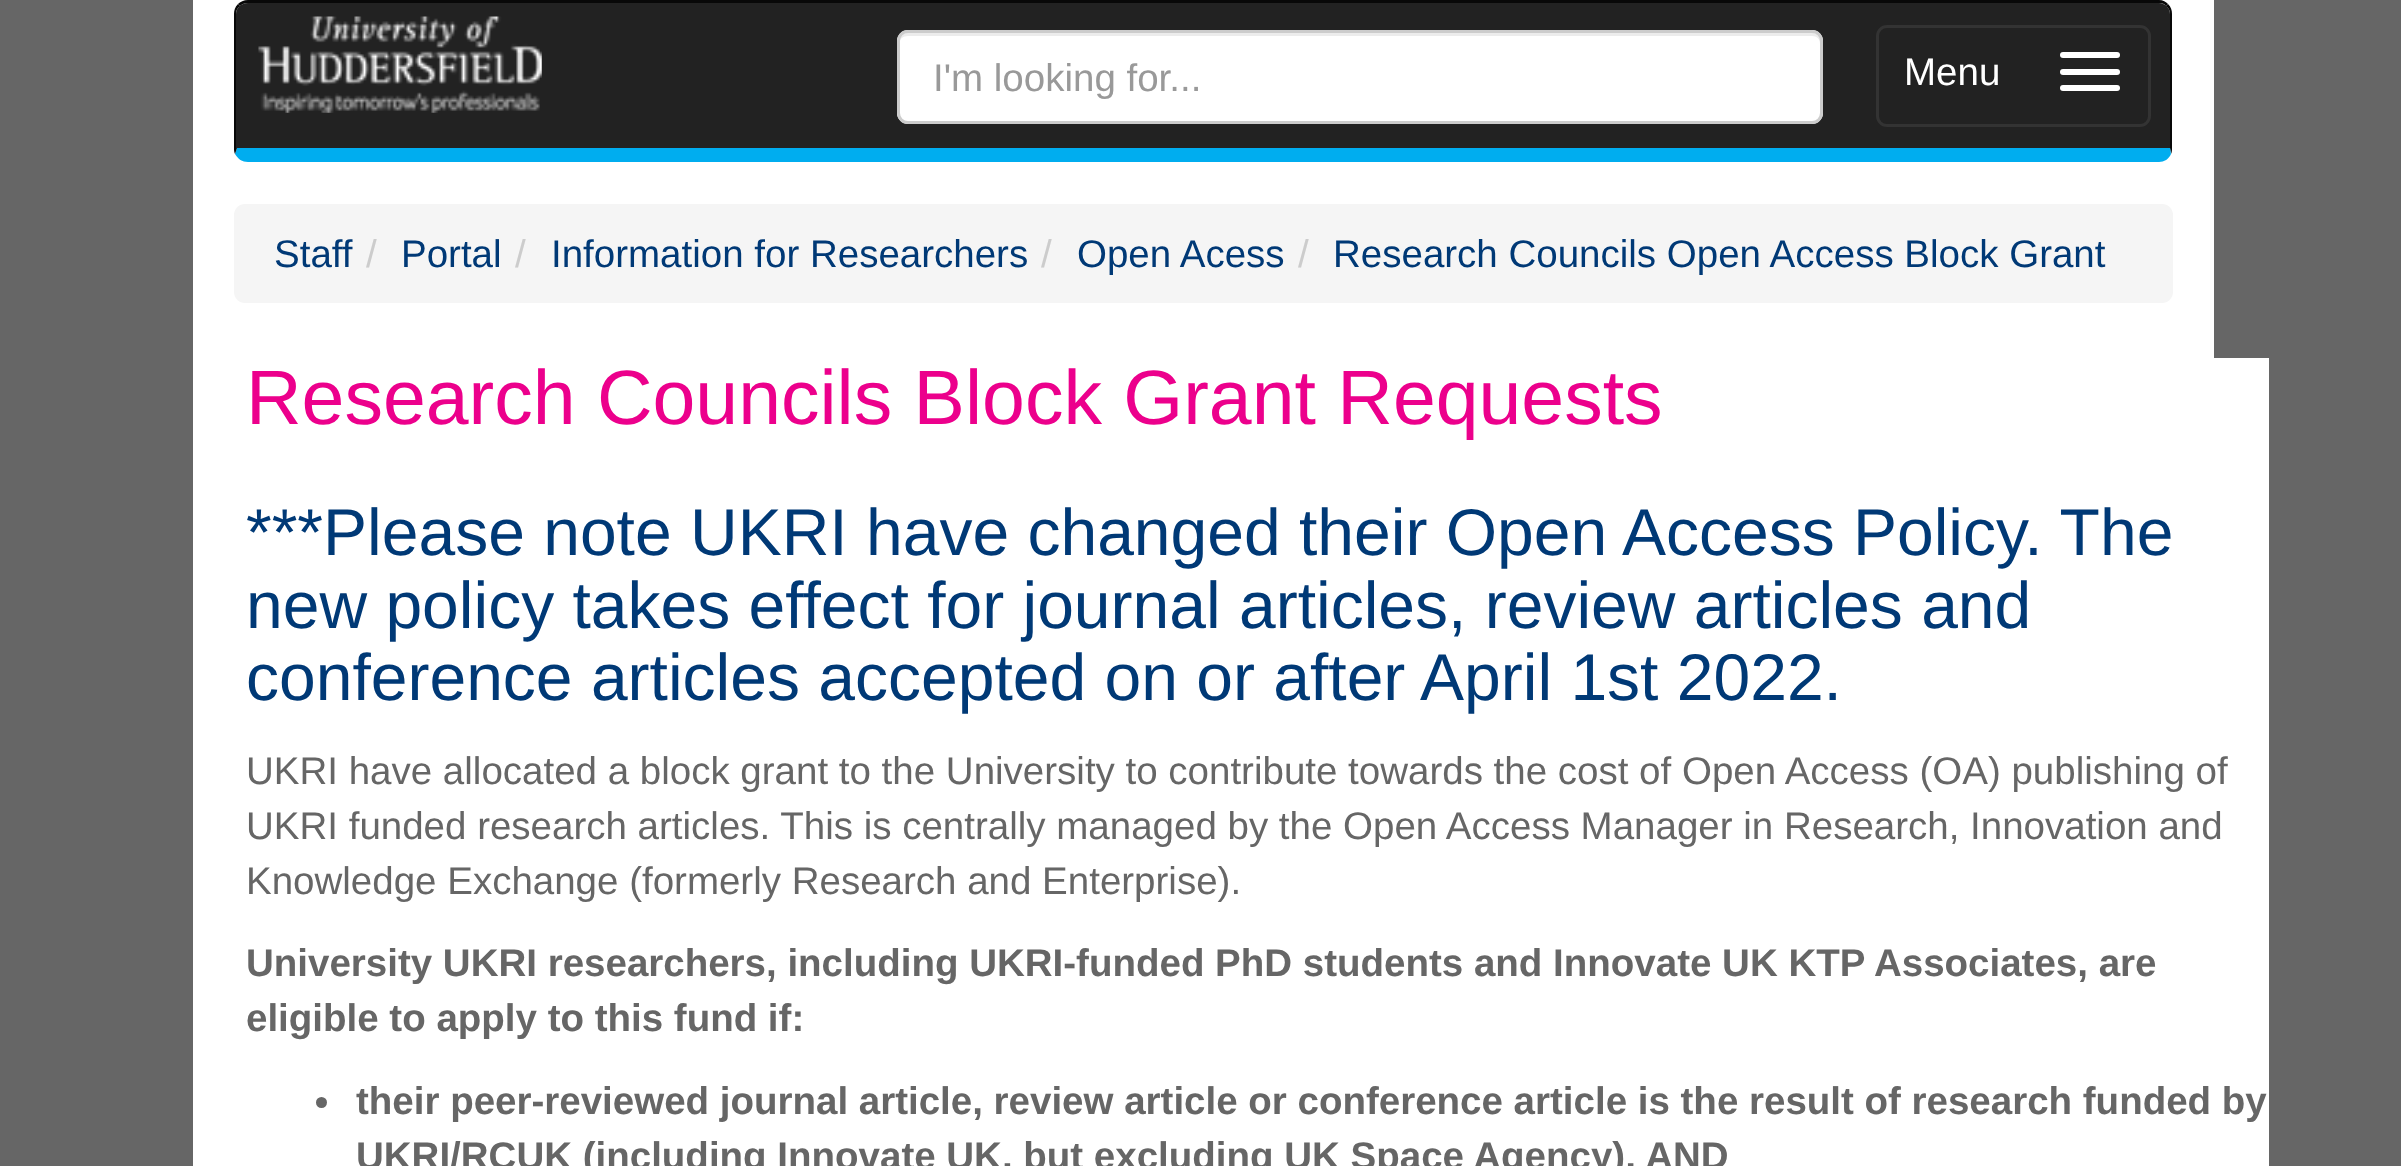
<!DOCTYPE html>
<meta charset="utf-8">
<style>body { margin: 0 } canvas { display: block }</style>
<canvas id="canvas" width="2401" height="1166"></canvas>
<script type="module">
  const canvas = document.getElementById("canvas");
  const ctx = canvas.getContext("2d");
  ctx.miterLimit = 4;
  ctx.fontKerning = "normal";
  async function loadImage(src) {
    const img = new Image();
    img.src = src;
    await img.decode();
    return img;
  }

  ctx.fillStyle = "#666666";
  ctx.fillRect(0, 0, 2401, 1166);
  ctx.fillStyle = "#ffffff";
  ctx.fillRect(193, 0, 2021, 1166);
  ctx.fillStyle = "#222222";
  ctx.beginPath();
  ctx.moveTo(248, 3);
  ctx.lineTo(2159, 3);
  ctx.bezierCurveTo(2165, 3, 2170, 8, 2170, 14);
  ctx.lineTo(2170, 148);
  ctx.lineTo(236, 148);
  ctx.lineTo(236, 14);
  ctx.bezierCurveTo(236, 8, 241, 3, 248, 3);
  ctx.closePath();
  ctx.fill();
  ctx.fillStyle = "#080808";
  ctx.beginPath();
  ctx.moveTo(248, 0);
  ctx.bezierCurveTo(244, 0, 240, 2, 238, 4);
  ctx.lineTo(240, 6);
  ctx.bezierCurveTo(242, 4, 245, 3, 248, 3);
  ctx.lineTo(2159, 3);
  ctx.bezierCurveTo(2162, 3, 2165, 4, 2166, 6);
  ctx.lineTo(2168, 4);
  ctx.bezierCurveTo(2166, 2, 2163, 0, 2159, 0);
  ctx.closePath();
  ctx.fill();
  ctx.beginPath();
  ctx.moveTo(2168, 4);
  ctx.bezierCurveTo(2171, 7, 2172, 10, 2172, 14);
  ctx.lineTo(2172, 148);
  ctx.bezierCurveTo(2172, 150, 2172, 152, 2171, 154);
  ctx.lineTo(2170, 148);
  ctx.lineTo(2170, 14);
  ctx.bezierCurveTo(2170, 11, 2169, 8, 2166, 6);
  ctx.closePath();
  ctx.fill();
  ctx.fillStyle = "#00adef";
  ctx.beginPath();
  ctx.moveTo(2171, 154);
  ctx.bezierCurveTo(2169, 159, 2164, 162, 2159, 162);
  ctx.lineTo(248, 162);
  ctx.bezierCurveTo(242, 162, 238, 159, 235, 154);
  ctx.lineTo(237, 148);
  ctx.lineTo(2170, 148);
  ctx.closePath();
  ctx.fill();
  ctx.fillStyle = "#080808";
  ctx.beginPath();
  ctx.moveTo(238, 4);
  ctx.bezierCurveTo(235, 7, 234, 10, 234, 14);
  ctx.lineTo(234, 148);
  ctx.bezierCurveTo(234, 150, 234, 152, 235, 154);
  ctx.lineTo(237, 148);
  ctx.lineTo(236, 148);
  ctx.lineTo(236, 14);
  ctx.bezierCurveTo(236, 11, 237, 8, 240, 6);
  ctx.closePath();
  ctx.fill();
  ctx.drawImage(await loadImage("img1.png"), 258, 16, 284, 97);
  ctx.fillStyle = "#ffffff";
  ctx.beginPath();
  ctx.roundRect(897, 30, 926, 94, 11);
  ctx.fill();
  ctx.fillStyle = "#ececec";
  ctx.beginPath();
  ctx.moveTo(908, 36);
  ctx.lineTo(1812, 36);
  ctx.bezierCurveTo(1817, 36, 1820, 39, 1820, 44);
  ctx.lineTo(1820, 117);
  ctx.bezierCurveTo(1821, 116, 1821, 114, 1821, 113);
  ctx.lineTo(1821, 41);
  ctx.bezierCurveTo(1821, 37, 1817, 33, 1813, 33);
  ctx.lineTo(907, 33);
  ctx.bezierCurveTo(903, 33, 899, 37, 899, 41);
  ctx.lineTo(899, 44);
  ctx.bezierCurveTo(899, 39, 903, 36, 908, 36);
  ctx.closePath();
  ctx.fill();
  ctx.beginPath();
  ctx.roundRect(898.5, 31.5, 923, 91, 9.5);
  ctx.strokeStyle = "#cccccc";
  ctx.lineWidth = 3;
  ctx.stroke();
  ctx.font = "38.5px Liberation Sans";
  ctx.fillStyle = "#999999";
  ctx.fillText("I'm looking for...", 933, 91);
  ctx.beginPath();
  ctx.roundRect(1877.5, 26.5, 272, 99, 9.5);
  ctx.strokeStyle = "#333333";
  ctx.stroke();
  ctx.fillStyle = "#ffffff";
  ctx.beginPath();
  ctx.roundRect(2060, 52, 60, 6, 3);
  ctx.fill();
  ctx.fillText("Menu", 1904, 85);
  ctx.beginPath();
  ctx.roundRect(2060, 69, 60, 6, 3);
  ctx.fill();
  ctx.beginPath();
  ctx.roundRect(2060, 85, 60, 6, 3);
  ctx.fill();
  ctx.fillStyle = "#f5f5f5";
  ctx.beginPath();
  ctx.roundRect(234, 204, 1939, 99, 11);
  ctx.fill();
  ctx.fillStyle = "#003976";
  ctx.fillText("Staff", 274, 267);
  ctx.fillStyle = "#cccccc";
  ctx.fillText("/", 366, 267);
  ctx.fillStyle = "#003976";
  ctx.fillText("Portal", 401, 267);
  ctx.fillStyle = "#cccccc";
  ctx.fillText("/", 515, 267);
  ctx.fillStyle = "#003976";
  ctx.fillText("Information for Researchers", 551, 267);
  ctx.fillStyle = "#cccccc";
  ctx.fillText("/", 1041, 267);
  ctx.fillStyle = "#003976";
  ctx.fillText("Open Acess", 1077, 267);
  ctx.fillStyle = "#cccccc";
  ctx.fillText("/", 1298, 267);
  ctx.fillStyle = "#003976";
  ctx.fillText("Research Councils Open Access Block Grant", 1333, 267);
  ctx.fillStyle = "#ffffff";
  ctx.fillRect(2214, 358, 55, 808);
  ctx.font = "77px Liberation Sans";
  ctx.fillStyle = "#ec008c";
  ctx.fillText("Research Councils Block Grant Requests", 246, 424);
  ctx.font = "66px Liberation Sans";
  ctx.fillStyle = "#003976";
  ctx.fillText("***Please note UKRI have changed their Open Access Policy. The", 246, 555);
  ctx.fillText("new policy takes effect for journal articles, review articles and", 246, 628);
  ctx.fillText("conference articles accepted on or after April 1st 2022.", 246, 700);
  ctx.font = "38.5px Liberation Sans";
  ctx.fillStyle = "#666666";
  ctx.fillText("UKRI have allocated a block grant to the University to contribute towards the cost of Open Access (OA) publishing of", 246, 784);
  ctx.fillText("UKRI funded research articles. This is centrally managed by the Open Access Manager in Research, Innovation and", 246, 839);
  ctx.fillText("Knowledge Exchange (formerly Research and Enterprise).", 246, 894);
  ctx.font = "bold 38.5px Liberation Sans";
  ctx.fillText("University UKRI researchers, including UKRI-funded PhD students and Innovate UK KTP Associates, are", 246, 976);
  ctx.fillText("eligible to apply to this fund if:", 246, 1031);
  ctx.beginPath();
  ctx.arc(321.5, 1102.5, 5.5, 0, Math.PI * 2);
  ctx.fill();
  ctx.fillText("their peer-reviewed journal article, review article or conference article is the result of research funded by", 356, 1114);
  ctx.fillText("UKRI/RCUK (including Innovate UK, but excluding UK Space Agency), AND", 356, 1169);
</script>
